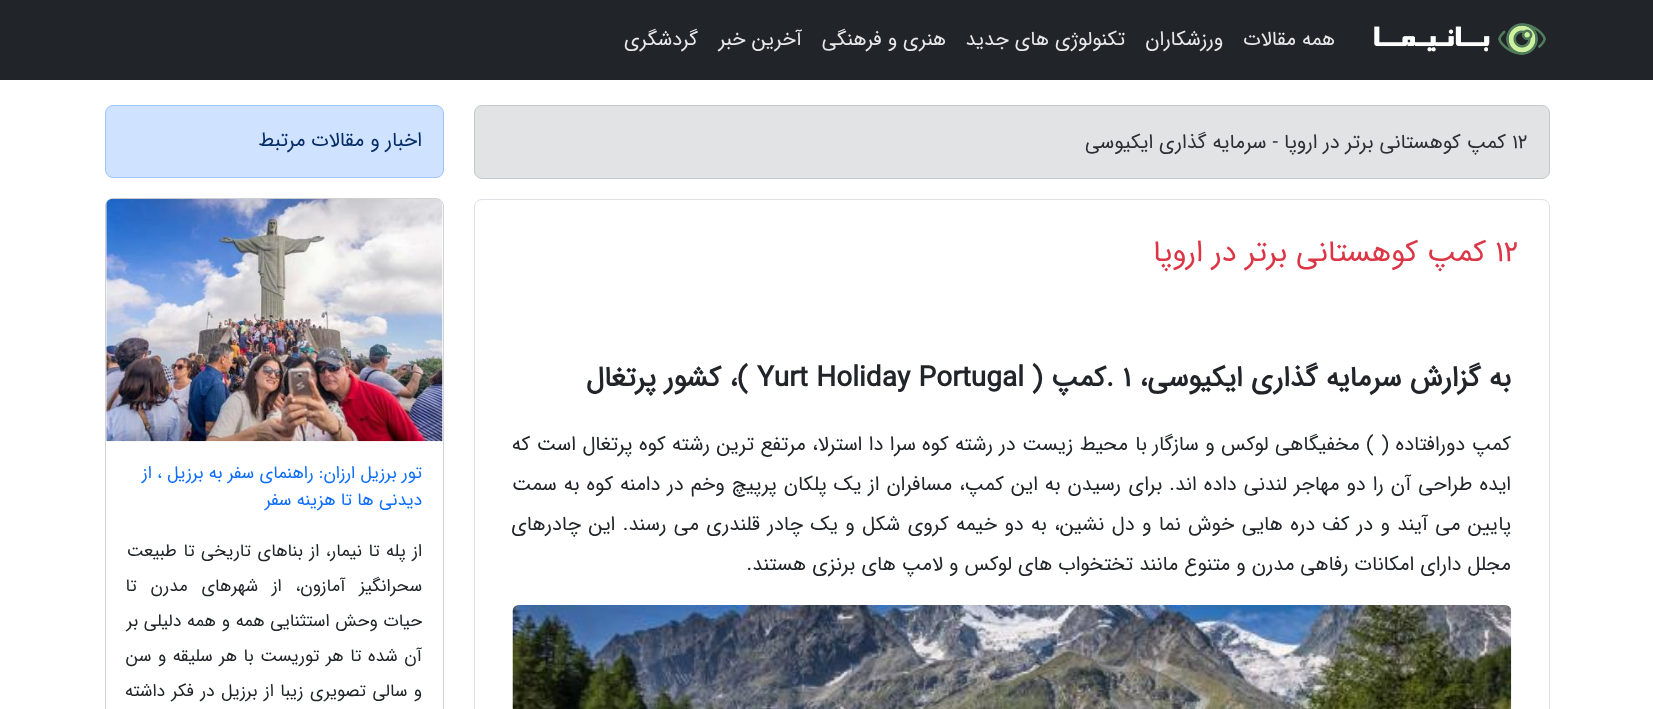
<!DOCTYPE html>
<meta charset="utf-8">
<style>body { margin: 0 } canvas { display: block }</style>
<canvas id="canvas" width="1653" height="709"></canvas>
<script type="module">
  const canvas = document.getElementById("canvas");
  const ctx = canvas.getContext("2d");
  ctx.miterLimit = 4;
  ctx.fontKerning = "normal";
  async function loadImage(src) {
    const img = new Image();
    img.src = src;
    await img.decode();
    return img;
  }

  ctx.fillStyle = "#ffffff";
  ctx.fillRect(0, 0, 1653, 709);
  ctx.fillStyle = "#212529";
  ctx.fillRect(0, 0, 1653, 80);
  ctx.drawImage(await loadImage("img1.png"), 1374, 23, 172, 32);
  ctx.direction = "rtl";
  ctx.font = "20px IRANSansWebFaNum";
  ctx.fillStyle = "#e9e9ea";
  ctx.fillText("همه مقالات", 1335, 45);
  ctx.fillText("ورزشکاران", 1223, 45);
  ctx.fillText("تکنولوژی های جدید", 1125, 45);
  ctx.fillText("هنری و فرهنگی", 946, 45);
  ctx.fillText("آخرین خبر", 802, 45);
  ctx.fillText("گردشگری", 698, 45);
  ctx.fillStyle = "#e2e3e5";
  ctx.beginPath();
  ctx.roundRect(474.5, 105.5, 1075, 73, 7.5);
  ctx.fill();
  ctx.strokeStyle = "#c4c8cb";
  ctx.stroke();
  ctx.direction = "ltr";
  ctx.fillStyle = "#2b2f32";
  ctx.fillText("12", 1512, 148);
  ctx.direction = "rtl";
  ctx.fillText("کمپ کوهستانی برتر در اروپا - سرمایه گذاری ایکیوسی", 1506, 148);
  ctx.beginPath();
  ctx.roundRect(474.5, 199.5, 1075, 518, 7.5);
  ctx.strokeStyle = "#dee2e6";
  ctx.stroke();
  ctx.direction = "ltr";
  ctx.font = "30px IRANSansWebFaNum";
  ctx.fillStyle = "#dc3545";
  ctx.fillText("12", 1495, 261);
  ctx.direction = "rtl";
  ctx.fillText("کمپ کوهستانی برتر در اروپا", 1486, 261);
  ctx.font = "bold 28px IRANSansWebFaNum";
  ctx.fillStyle = "#212529";
  ctx.fillText("به گزارش سرمایه گذاری ایکیوسی،", 1511, 386);
  ctx.direction = "ltr";
  ctx.fillText(". 1", 1106, 386);
  ctx.direction = "rtl";
  ctx.fillText("کمپ (", 1106, 386);
  ctx.direction = "ltr";
  ctx.fillText("Yurt Holiday Portugal", 757, 386);
  ctx.direction = "rtl";
  ctx.fillText(")، کشور پرتغال", 748, 386);
  ctx.wordSpacing = "0.5px";
  ctx.font = "20px IRANSansWebFaNum";
  ctx.fillText("کمپ دورافتاده (", 1511, 450);
  ctx.fillText(") مخفیگاهی لوکس و سازگار", 1374, 450);
  ctx.wordSpacing = "0px";
  ctx.fillText("با", 1147, 450);
  ctx.wordSpacing = "0.5px";
  ctx.fillText("محیط زیست در رشته کوه", 1128, 450);
  ctx.fillText("سرا دا استرلا، مرتفع ترین رشته کوه پرتغال است که", 916, 450);
  ctx.wordSpacing = "1px";
  ctx.fillText("ایده طراحی آن را دو مهاجر لندنی داده اند. برای", 1511, 490);
  ctx.fillText("رسیدن به این کمپ، مسافران از یک پلکان پرپیچ وخم در دامنه کوه به سمت", 1121, 490);
  ctx.wordSpacing = "1.4px";
  ctx.fillText("پایین می آیند و در کف", 1511, 530);
  ctx.fillText("دره هایی خوش نما و دل نشین، به دو خیمه کروی شکل و یک چادر قلندری می رسند. این چادرهای", 1315, 530);
  ctx.wordSpacing = "0px";
  ctx.fillText("مجلل دارای امکانات رفاهی مدرن و متنوع مانند تختخواب های لوکس و لامپ های برنزی", 1511, 570);
  ctx.fillText("هستند.", 806, 570);
  ctx.drawImage(await loadImage("img2.png"), 512, 605, 1000, 104);
  ctx.fillStyle = "#cfe2ff";
  ctx.beginPath();
  ctx.roundRect(105.5, 105.5, 338, 72, 7.5);
  ctx.fill();
  ctx.strokeStyle = "#9ec5fe";
  ctx.stroke();
  ctx.fillStyle = "#052c65";
  ctx.fillText("اخبار و مقالات مرتبط", 422, 146);
  ctx.beginPath();
  ctx.roundRect(105.5, 198.5, 338, 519, 7.5);
  ctx.strokeStyle = "#d2d2d2";
  ctx.stroke();
  ctx.drawImage(await loadImage("img3.png"), 106, 198, 337, 244);
  ctx.font = "17.5px IRANSansWebFaNum";
  ctx.fillStyle = "#0d6efd";
  ctx.fillText("تور برزیل ارزان: راهنمای سفر به برزیل ، از", 422, 478);
  ctx.fillText("دیدنی ها تا هزینه سفر", 422, 505);
  ctx.wordSpacing = "1.25px";
  ctx.fillStyle = "#212529";
  ctx.fillText("از پله تا نیمار، از بناهای تاریخی تا طبیعت", 422, 556);
  ctx.wordSpacing = "8.5px";
  ctx.fillText("سحرانگیز آمازون، از شهرهای مدرن تا", 422, 591);
  ctx.wordSpacing = "0.5px";
  ctx.fillText("حیات وحش استثنایی همه و همه دلیلی بر", 422, 626);
  ctx.wordSpacing = "1.25px";
  ctx.fillText("آن شده تا هر توریست با هر سلیقه و سن", 422, 661);
  ctx.fillText("و سالی تصویری زیبا از برزیل در فکر داشته", 422, 696);
</script>
